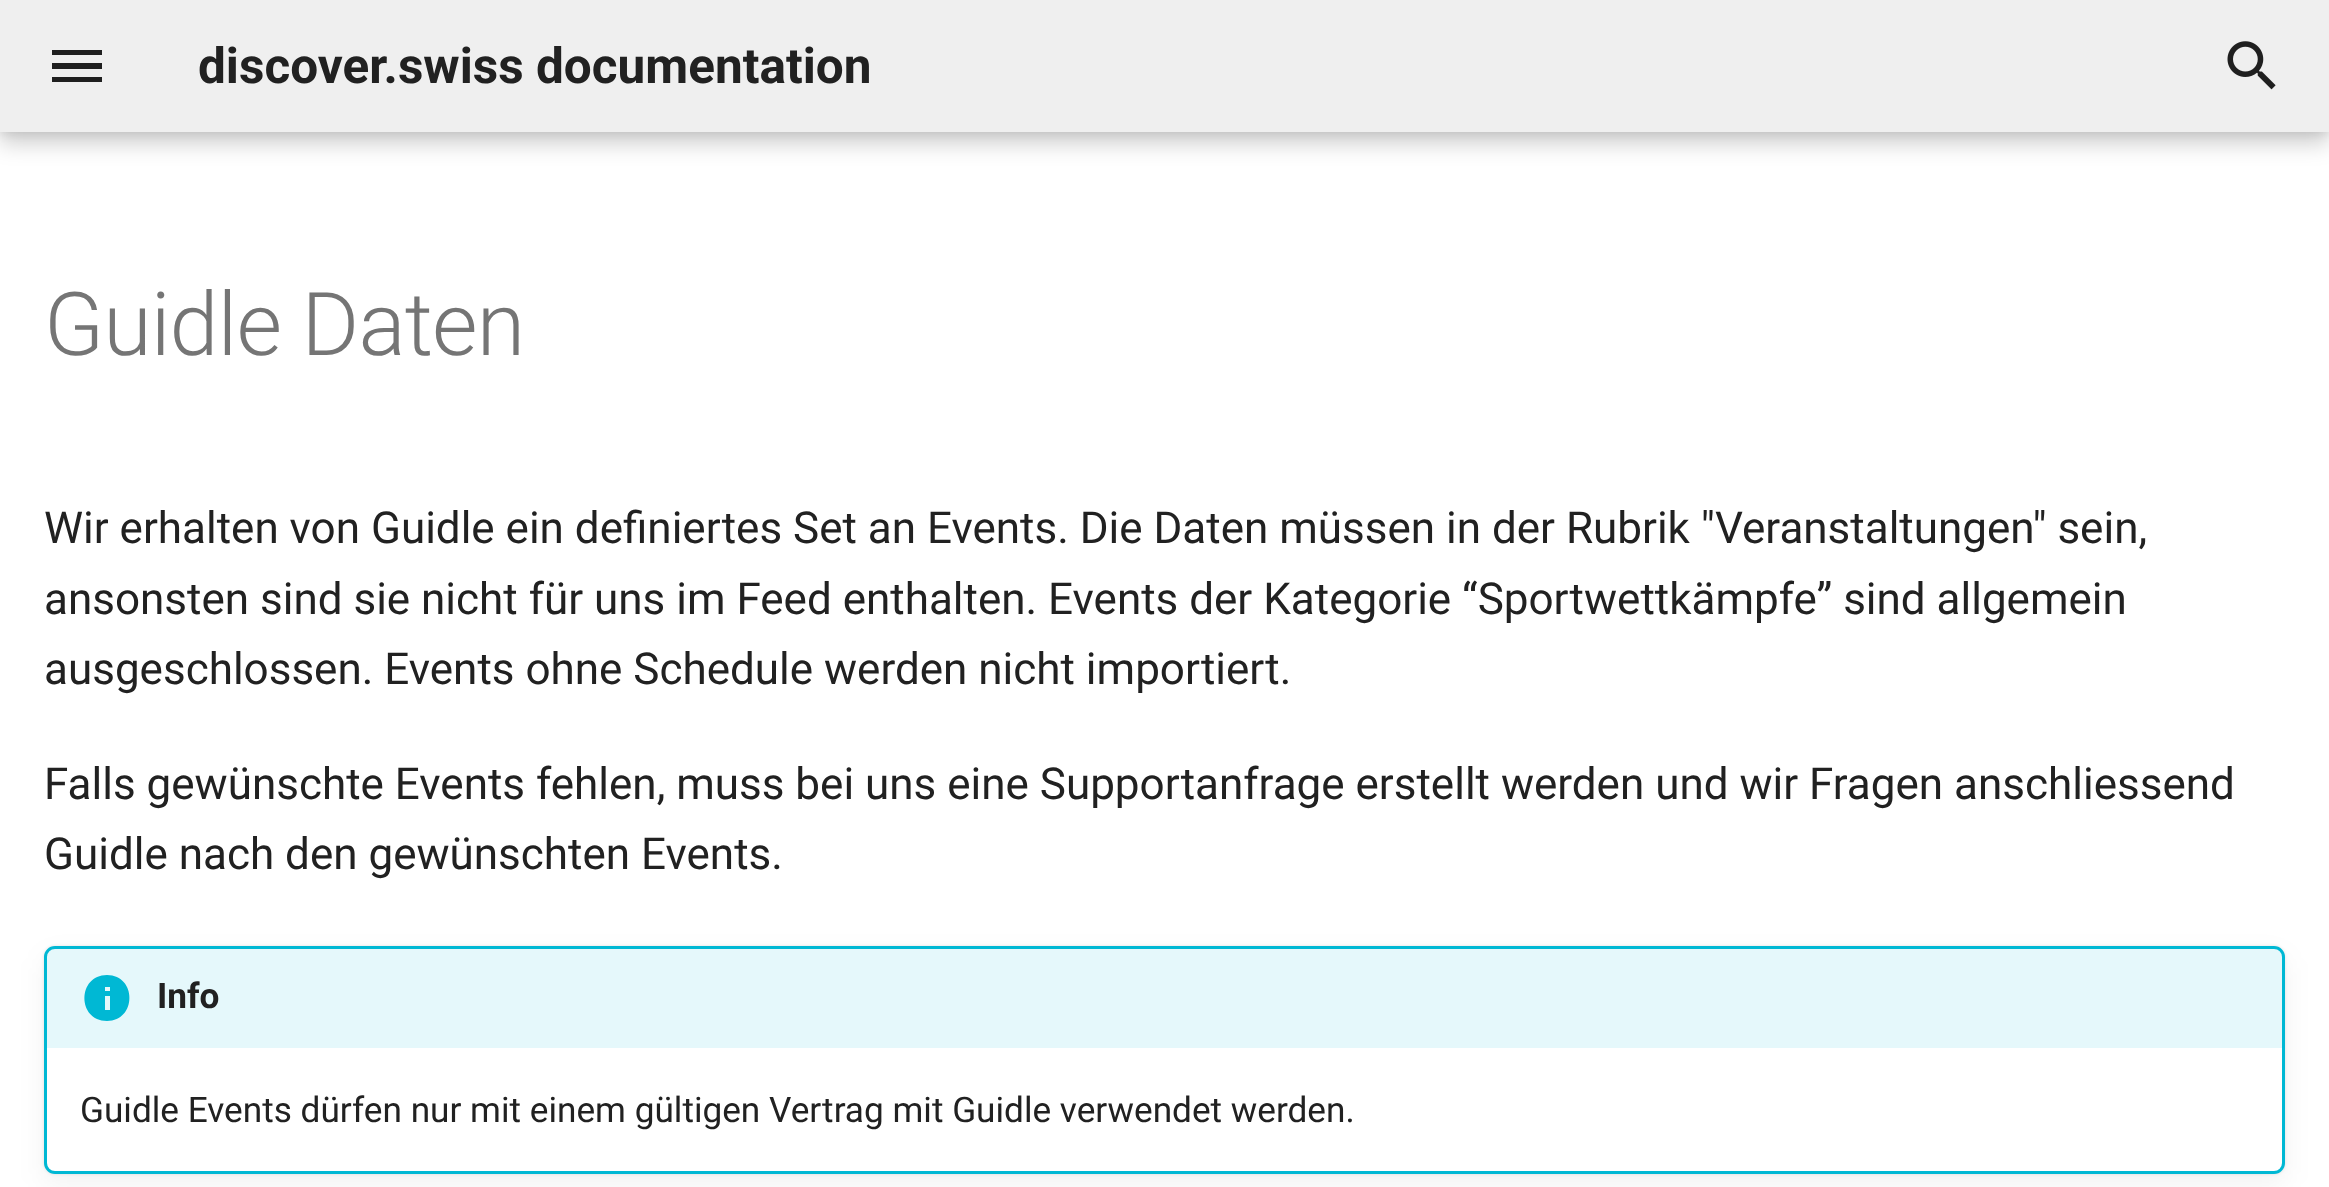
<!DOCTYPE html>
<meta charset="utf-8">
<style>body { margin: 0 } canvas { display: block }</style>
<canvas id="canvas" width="2329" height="1187"></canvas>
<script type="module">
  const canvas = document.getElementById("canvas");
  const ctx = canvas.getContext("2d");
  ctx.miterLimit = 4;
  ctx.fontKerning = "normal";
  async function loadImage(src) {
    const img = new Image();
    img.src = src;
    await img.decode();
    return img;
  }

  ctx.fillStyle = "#ffffff";
  ctx.fillRect(0, 0, 2329, 1187);
  ctx.fillStyle = "rgba(0, 0, 0, 0.2)";
  ctx.filter = "blur(11px)";
  ctx.beginPath();
  ctx.rect(0, 11, 2329, 132);
  ctx.fill();
  ctx.filter = "none";
  ctx.fillStyle = "rgba(0, 0, 0, 0.1)";
  ctx.filter = "blur(5.5px)";
  ctx.beginPath();
  ctx.rect(0, 0, 2329, 132);
  ctx.fill();
  ctx.filter = "none";
  ctx.fillStyle = "#efefef";
  ctx.fillRect(0, 0, 2329, 132);
  ctx.fillStyle = "#1f1f1f";
  ctx.beginPath();
  ctx.moveTo(52, 50);
  ctx.lineTo(102, 50);
  ctx.lineTo(102, 55);
  ctx.lineTo(52, 55);
  ctx.closePath();
  ctx.moveTo(52, 63);
  ctx.lineTo(102, 63);
  ctx.lineTo(102, 69);
  ctx.lineTo(52, 69);
  ctx.closePath();
  ctx.moveTo(52, 77);
  ctx.lineTo(102, 77);
  ctx.lineTo(102, 82);
  ctx.lineTo(52, 82);
  ctx.closePath();
  ctx.fill();
  ctx.font = "bold 49.5px Roboto";
  ctx.fillStyle = "#212121";
  ctx.fillText("discover.swiss documentation", 198, 83);
  ctx.drawImage(await loadImage("img1.png"), 2227, 41, 49, 49);
  ctx.letterSpacing = "-0.9px";
  ctx.font = "300 88px Roboto";
  ctx.fillStyle = "#757575";
  ctx.fillText("Guidle Daten", 44, 355);
  ctx.letterSpacing = "0px";
  ctx.font = "44px Roboto";
  ctx.fillStyle = "#212121";
  ctx.fillText("Wir erhalten von Guidle ein definiertes Set an Events. Die Daten müssen in der Rubrik \"Veranstaltungen\" sein,", 44, 543);
  ctx.fillText("ansonsten sind sie nicht für uns im Feed enthalten. Events der Kategorie “Sportwettkämpfe” sind allgemein", 44, 614);
  ctx.fillText("ausgeschlossen. Events ohne Schedule werden nicht importiert.", 44, 684);
  ctx.fillText("Falls gewünschte Events fehlen, muss bei uns eine Supportanfrage erstellt werden und wir Fragen anschliessend", 44, 799);
  ctx.fillText("Guidle nach den gewünschten Events.", 44, 869);
  ctx.fillStyle = "rgba(0, 0, 0, 0.1)";
  ctx.filter = "blur(1.5px)";
  ctx.beginPath();
  ctx.roundRect(44, 946, 2241, 228, 11);
  ctx.fill();
  ctx.filter = "none";
  ctx.fillStyle = "rgba(0, 0, 0, 0.05)";
  ctx.filter = "blur(14px)";
  ctx.beginPath();
  ctx.roundRect(44, 957, 2241, 228, 11);
  ctx.fill();
  ctx.filter = "none";
  ctx.fillStyle = "#ffffff";
  ctx.beginPath();
  ctx.roundRect(45.5, 947.5, 2238, 225, 9.5);
  ctx.fill();
  ctx.strokeStyle = "#00b8d4";
  ctx.lineWidth = 3;
  ctx.stroke();
  ctx.fillStyle = "rgba(0, 184, 212, 0.1)";
  ctx.beginPath();
  ctx.roundRect(47, 949, 2236, 99, [6, 6, 0, 0]);
  ctx.fill();
  ctx.fillStyle = "#00b8d4";
  ctx.beginPath();
  ctx.moveTo(110, 991);
  ctx.lineTo(105, 991);
  ctx.lineTo(105, 987);
  ctx.lineTo(110, 987);
  ctx.moveTo(110, 1010);
  ctx.lineTo(105, 1010);
  ctx.lineTo(105, 996);
  ctx.lineTo(110, 996);
  ctx.moveTo(107, 975);
  ctx.bezierCurveTo(77, 975, 77, 1021, 107, 1021);
  ctx.bezierCurveTo(137, 1021, 137, 975, 107, 975);
  ctx.fill();
  ctx.font = "bold 35.2px Roboto";
  ctx.fillStyle = "#212121";
  ctx.fillText("Info", 157, 1008);
  ctx.font = "35.2px Roboto";
  ctx.fillText("Guidle Events dürfen nur mit einem gültigen Vertrag mit Guidle verwendet werden.", 80, 1122);
</script>
